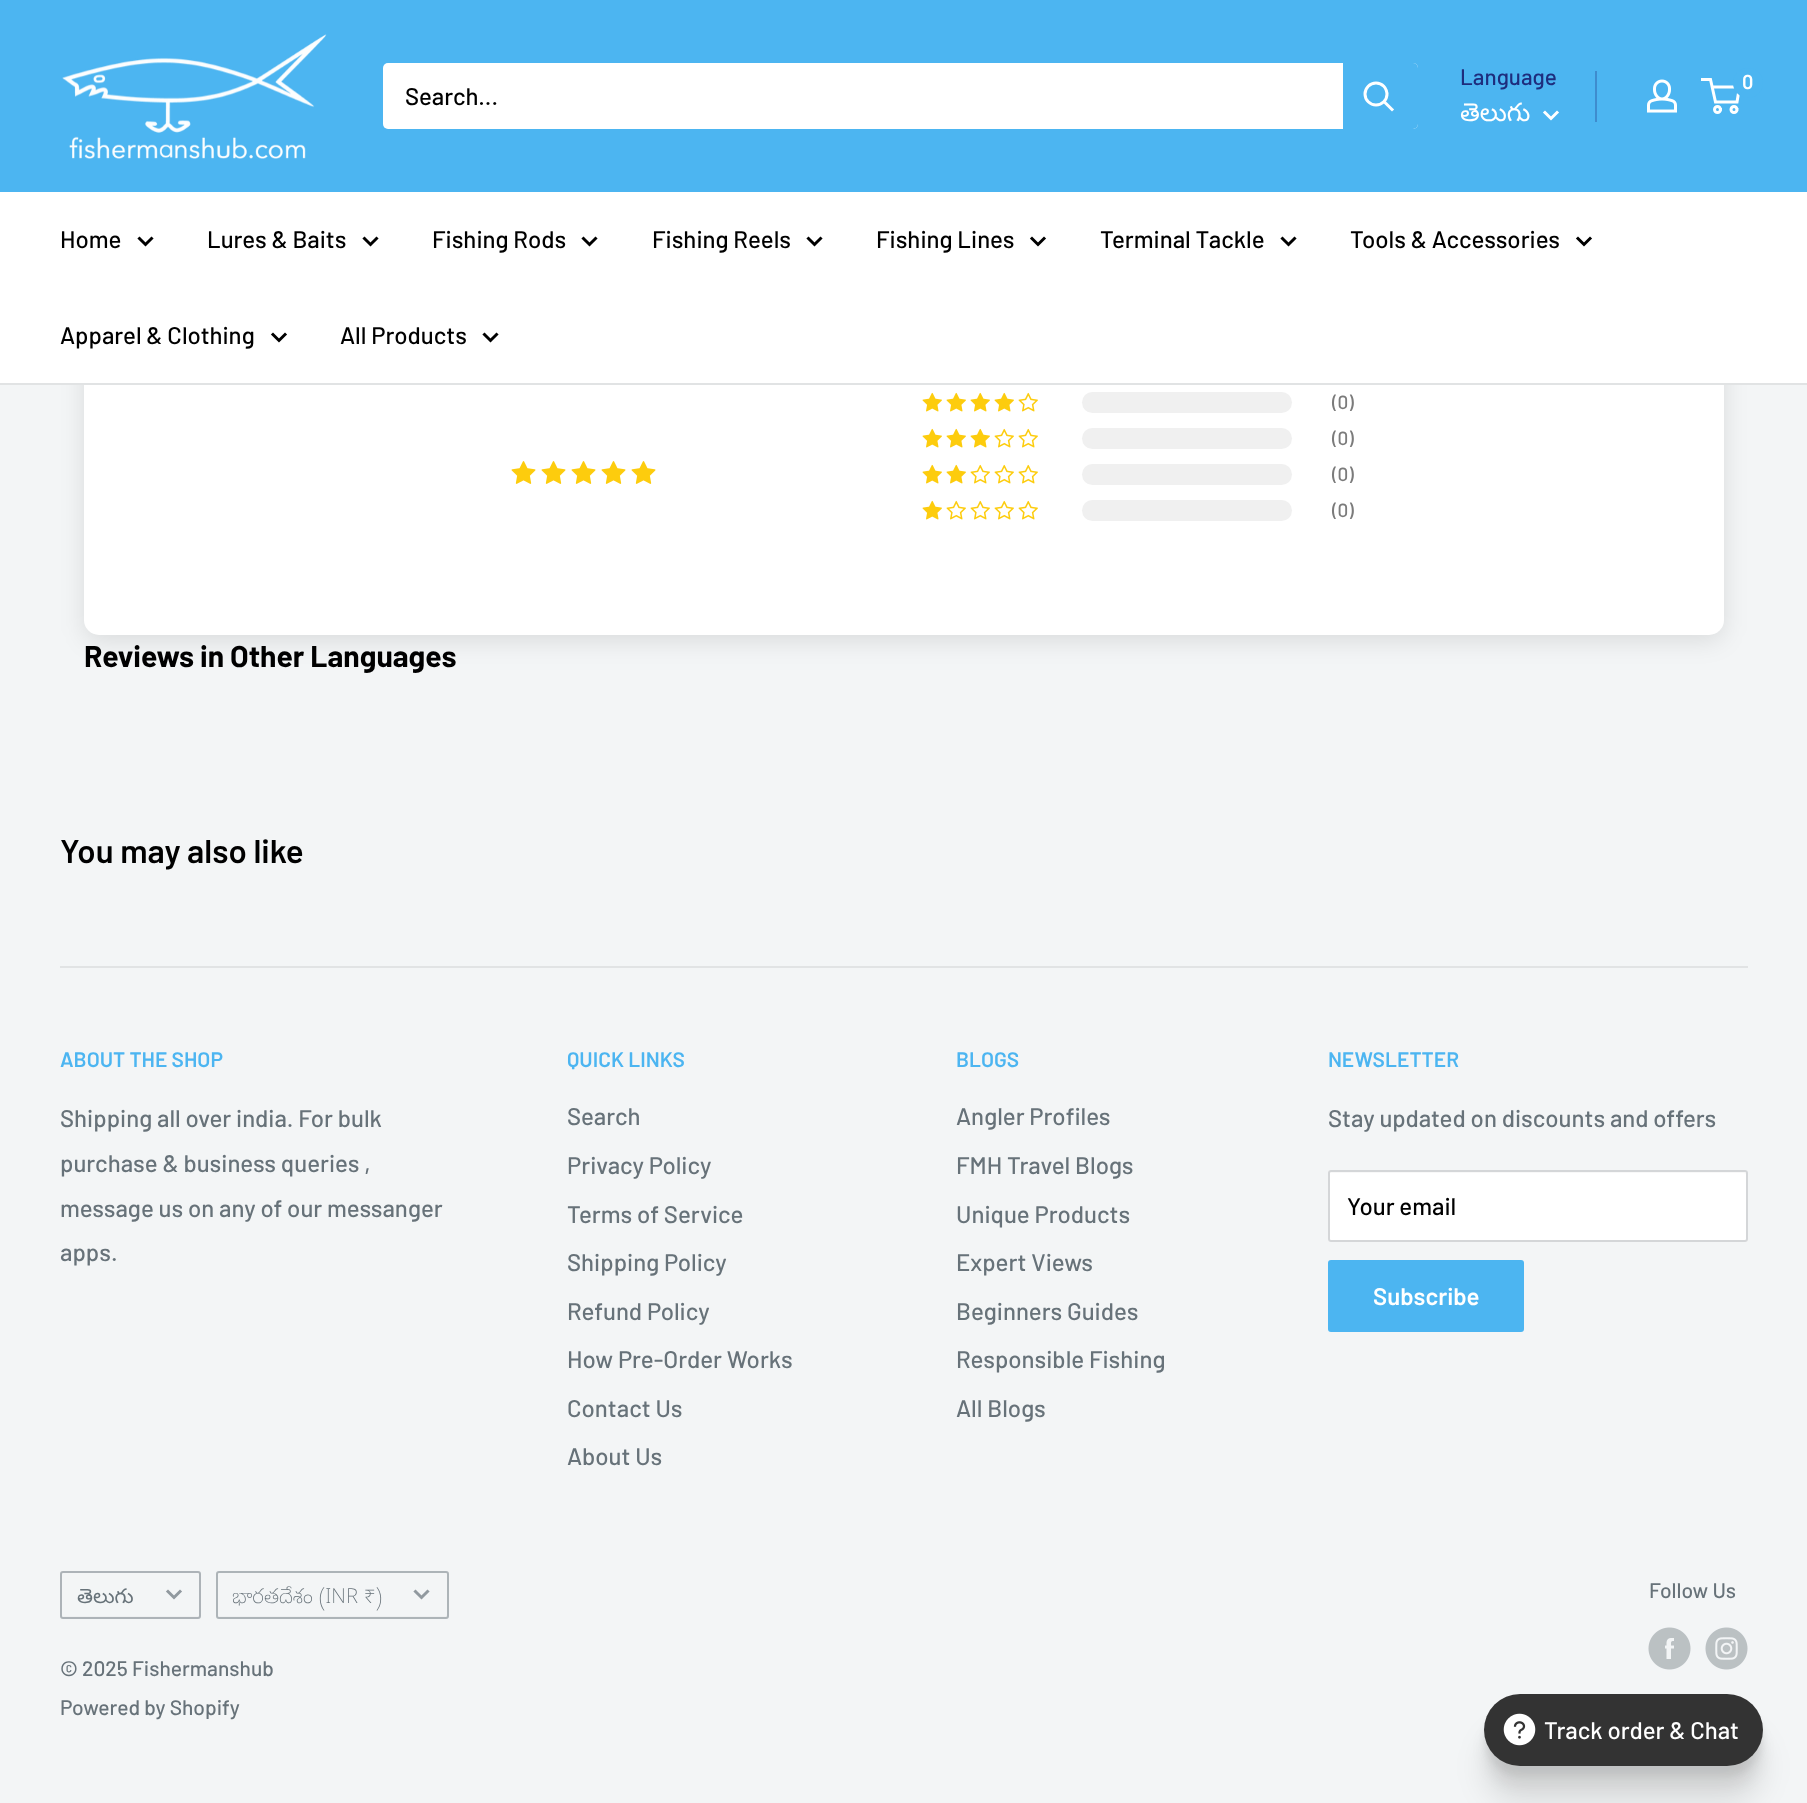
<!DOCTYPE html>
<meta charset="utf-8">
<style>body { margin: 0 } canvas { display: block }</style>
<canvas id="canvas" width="1807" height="1803"></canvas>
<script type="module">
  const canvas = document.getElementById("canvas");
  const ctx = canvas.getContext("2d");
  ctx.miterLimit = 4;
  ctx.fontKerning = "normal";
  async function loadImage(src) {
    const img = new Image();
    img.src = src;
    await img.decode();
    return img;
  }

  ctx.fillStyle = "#f3f5f6";
  ctx.fillRect(0, 0, 1807, 1803);
  ctx.fillStyle = "#4cb5f1";
  ctx.fillRect(0, 0, 1807, 192);
  ctx.drawImage(await loadImage("img1.png"), 62, 34, 265, 125);
  ctx.fillStyle = "#ffffff";
  ctx.beginPath();
  ctx.roundRect(383, 63, 1035, 66, 5);
  ctx.fill();
  ctx.font = "500 24px Barlow";
  ctx.fillStyle = "#000000";
  ctx.fillText("Search...", 405, 105);
  ctx.fillStyle = "#4cb5f1";
  ctx.beginPath();
  ctx.roundRect(1343, 63, 75, 66, [0, 5, 5, 0]);
  ctx.fill();
  ctx.beginPath();
  ctx.moveTo(1392, 109.5);
  ctx.lineTo(1384.5, 102);
  ctx.strokeStyle = "#ffffff";
  ctx.lineWidth = 3;
  ctx.lineCap = "square";
  ctx.stroke();
  ctx.beginPath();
  ctx.arc(1376, 94, 11, 0, Math.PI * 2);
  ctx.stroke();
  ctx.font = "500 22.5px Barlow";
  ctx.fillStyle = "#1e2d7d";
  ctx.fillText("Language", 1460, 85);
  ctx.font = "25.5px Noto Sans Telugu";
  ctx.fillStyle = "#ffffff";
  ctx.fillText("తెలుగు", 1460, 121);
  ctx.beginPath();
  ctx.moveTo(1557, 112.5);
  ctx.lineTo(1551, 118.5);
  ctx.lineTo(1545, 112.5);
  ctx.stroke();
  ctx.fillStyle = "#3e8cce";
  ctx.fillRect(1595, 71, 2, 51);
  ctx.drawImage(await loadImage("img2.png"), 1647, 79, 30, 34);
  ctx.beginPath();
  ctx.arc(1717.5, 109.5, 3, 0, Math.PI * 2);
  ctx.stroke();
  ctx.beginPath();
  ctx.arc(1734, 109.5, 3, 0, Math.PI * 2);
  ctx.stroke();
  ctx.beginPath();
  ctx.moveTo(1712, 87);
  ctx.lineTo(1739.5, 87);
  ctx.lineTo(1737, 102);
  ctx.lineTo(1715.5, 102);
  ctx.lineTo(1710.5, 79.5);
  ctx.lineTo(1701, 79.5);
  ctx.lineCap = "butt";
  ctx.stroke();
  ctx.fillStyle = "#4cb5f1";
  ctx.beginPath();
  ctx.arc(1748, 83, 15, 0, Math.PI * 2);
  ctx.fill();
  ctx.font = "600 20px Barlow";
  ctx.fillStyle = "#ffffff";
  ctx.fillText("0", 1742, 89);
  ctx.fillStyle = "rgba(0, 0, 0, 0.1)";
  ctx.filter = "blur(12px)";
  ctx.beginPath();
  ctx.roundRect(84, 236, 1640, 405, 15);
  ctx.fill();
  ctx.filter = "none";
  ctx.fillStyle = "#ffffff";
  ctx.beginPath();
  ctx.roundRect(84, 230, 1640, 405, 15);
  ctx.fill();
  ctx.fillRect(0, 192, 1807, 191);
  ctx.fillStyle = "#e1e3e4";
  ctx.fillRect(0, 383, 1807, 2);
  ctx.font = "500 24px Barlow";
  ctx.fillStyle = "#000000";
  ctx.fillText("Home", 60, 248);
  ctx.beginPath();
  ctx.moveTo(151.5, 238.5);
  ctx.lineTo(145.5, 244.5);
  ctx.lineTo(139.5, 238.5);
  ctx.strokeStyle = "#000000";
  ctx.lineCap = "square";
  ctx.stroke();
  ctx.fillText("Lures & Baits", 207, 248);
  ctx.beginPath();
  ctx.moveTo(376.5, 238.5);
  ctx.lineTo(370.5, 244.5);
  ctx.lineTo(364.5, 238.5);
  ctx.stroke();
  ctx.fillText("Fishing Rods", 432, 248);
  ctx.beginPath();
  ctx.moveTo(595.5, 238.5);
  ctx.lineTo(589.5, 244.5);
  ctx.lineTo(583.5, 238.5);
  ctx.stroke();
  ctx.fillText("Fishing Reels", 652, 248);
  ctx.beginPath();
  ctx.moveTo(820.5, 238.5);
  ctx.lineTo(814.5, 244.5);
  ctx.lineTo(808.5, 238.5);
  ctx.stroke();
  ctx.fillText("Fishing Lines", 876, 248);
  ctx.beginPath();
  ctx.moveTo(1044, 238.5);
  ctx.lineTo(1038, 244.5);
  ctx.lineTo(1032, 238.5);
  ctx.stroke();
  ctx.fillText("Terminal Tackle", 1100, 248);
  ctx.beginPath();
  ctx.moveTo(1294.5, 238.5);
  ctx.lineTo(1288.5, 244.5);
  ctx.lineTo(1282.5, 238.5);
  ctx.stroke();
  ctx.fillText("Tools & Accessories", 1350, 248);
  ctx.beginPath();
  ctx.moveTo(1590, 238.5);
  ctx.lineTo(1584, 244.5);
  ctx.lineTo(1578, 238.5);
  ctx.stroke();
  ctx.fillText("Apparel & Clothing", 60, 344);
  ctx.beginPath();
  ctx.moveTo(285, 334.5);
  ctx.lineTo(279, 340.5);
  ctx.lineTo(273, 334.5);
  ctx.stroke();
  ctx.fillText("All Products", 340, 344);
  ctx.beginPath();
  ctx.moveTo(496.5, 334.5);
  ctx.lineTo(490.5, 340.5);
  ctx.lineTo(484.5, 334.5);
  ctx.stroke();
  ctx.drawImage(await loadImage("img3.png"), 511, 461, 25, 23);
  ctx.drawImage(await loadImage("img3.png"), 541, 461, 25, 23);
  ctx.drawImage(await loadImage("img3.png"), 571, 461, 25, 23);
  ctx.drawImage(await loadImage("img3.png"), 601, 461, 25, 23);
  ctx.drawImage(await loadImage("img3.png"), 631, 461, 25, 23);
  ctx.drawImage(await loadImage("img4.png"), 922, 392, 20, 20);
  ctx.drawImage(await loadImage("img4.png"), 946, 392, 20, 20);
  ctx.drawImage(await loadImage("img4.png"), 970, 392, 20, 20);
  ctx.drawImage(await loadImage("img4.png"), 994, 392, 20, 20);
  ctx.drawImage(await loadImage("img5.png"), 1018, 392, 20, 20);
  ctx.fillStyle = "#f0f0f0";
  ctx.beginPath();
  ctx.roundRect(1082, 392, 210, 21, 10.5);
  ctx.fill();
  ctx.font = "500 19px Barlow";
  ctx.fillStyle = "#7b7b7b";
  ctx.fillText("(0)", 1332, 409);
  ctx.drawImage(await loadImage("img4.png"), 922, 428, 20, 20);
  ctx.drawImage(await loadImage("img4.png"), 946, 428, 20, 20);
  ctx.drawImage(await loadImage("img4.png"), 970, 428, 20, 20);
  ctx.drawImage(await loadImage("img5.png"), 994, 428, 20, 20);
  ctx.drawImage(await loadImage("img5.png"), 1018, 428, 20, 20);
  ctx.fillStyle = "#f0f0f0";
  ctx.beginPath();
  ctx.roundRect(1082, 428, 210, 21, 10.5);
  ctx.fill();
  ctx.fillStyle = "#7b7b7b";
  ctx.fillText("(0)", 1332, 445);
  ctx.drawImage(await loadImage("img4.png"), 922, 464, 20, 20);
  ctx.drawImage(await loadImage("img4.png"), 946, 464, 20, 20);
  ctx.drawImage(await loadImage("img5.png"), 970, 464, 20, 20);
  ctx.drawImage(await loadImage("img5.png"), 994, 464, 20, 20);
  ctx.drawImage(await loadImage("img5.png"), 1018, 464, 20, 20);
  ctx.fillStyle = "#f0f0f0";
  ctx.beginPath();
  ctx.roundRect(1082, 464, 210, 21, 10.5);
  ctx.fill();
  ctx.fillStyle = "#7b7b7b";
  ctx.fillText("(0)", 1332, 481);
  ctx.drawImage(await loadImage("img4.png"), 922, 500, 20, 20);
  ctx.drawImage(await loadImage("img5.png"), 946, 500, 20, 20);
  ctx.drawImage(await loadImage("img5.png"), 970, 500, 20, 20);
  ctx.drawImage(await loadImage("img5.png"), 994, 500, 20, 20);
  ctx.drawImage(await loadImage("img5.png"), 1018, 500, 20, 20);
  ctx.fillStyle = "#f0f0f0";
  ctx.beginPath();
  ctx.roundRect(1082, 500, 210, 21, 10.5);
  ctx.fill();
  ctx.fillStyle = "#7b7b7b";
  ctx.fillText("(0)", 1332, 517);
  ctx.font = "bold 30px Barlow";
  ctx.fillStyle = "#000000";
  ctx.fillText("Reviews in Other Languages", 84, 667);
  ctx.font = "600 33px Barlow";
  ctx.fillText("You may also like", 60, 863);
  ctx.fillStyle = "#e1e3e4";
  ctx.fillRect(60, 966, 1688, 2);
  ctx.font = "600 21px Barlow";
  ctx.fillStyle = "#4cb5f1";
  ctx.fillText("ABOUT THE SHOP", 60, 1067);
  ctx.font = "500 24px Barlow";
  ctx.fillStyle = "#677279";
  ctx.fillText("Shipping all over india. For bulk", 60, 1127);
  ctx.fillText("purchase & business queries ,", 60, 1172);
  ctx.fillText("message us on any of our messanger", 60, 1217);
  ctx.fillText("apps.", 60, 1261);
  ctx.font = "600 21px Barlow";
  ctx.fillStyle = "#4cb5f1";
  ctx.fillText("QUICK LINKS", 567, 1067);
  ctx.font = "500 24px Barlow";
  ctx.fillStyle = "#677279";
  ctx.fillText("Search", 567, 1125);
  ctx.fillText("Privacy Policy", 567, 1174);
  ctx.fillText("Terms of Service", 567, 1223);
  ctx.fillText("Shipping Policy", 567, 1271);
  ctx.fillText("Refund Policy", 567, 1320);
  ctx.fillText("How Pre-Order Works", 567, 1368);
  ctx.fillText("Contact Us", 567, 1417);
  ctx.fillText("About Us", 567, 1465);
  ctx.font = "600 21px Barlow";
  ctx.fillStyle = "#4cb5f1";
  ctx.fillText("BLOGS", 956, 1067);
  ctx.font = "500 24px Barlow";
  ctx.fillStyle = "#677279";
  ctx.fillText("Angler Profiles", 956, 1125);
  ctx.fillText("FMH Travel Blogs", 956, 1174);
  ctx.fillText("Unique Products", 956, 1223);
  ctx.fillText("Expert Views", 956, 1271);
  ctx.fillText("Beginners Guides", 956, 1320);
  ctx.fillText("Responsible Fishing", 956, 1368);
  ctx.fillText("All Blogs", 956, 1417);
  ctx.font = "600 21px Barlow";
  ctx.fillStyle = "#4cb5f1";
  ctx.fillText("NEWSLETTER", 1328, 1067);
  ctx.font = "500 24px Barlow";
  ctx.fillStyle = "#677279";
  ctx.fillText("Stay updated on discounts and offers", 1328, 1127);
  ctx.fillStyle = "#ffffff";
  ctx.beginPath();
  ctx.roundRect(1328, 1170, 420, 72, 3);
  ctx.fill();
  ctx.fillStyle = "#f8f8f8";
  ctx.beginPath();
  ctx.moveTo(1330, 1173);
  ctx.lineTo(1744, 1173);
  ctx.lineTo(1746, 1174);
  ctx.bezierCurveTo(1746, 1173, 1746, 1172, 1744, 1172);
  ctx.lineTo(1330, 1172);
  ctx.bezierCurveTo(1329, 1172, 1329, 1173, 1329, 1174);
  ctx.closePath();
  ctx.fill();
  ctx.beginPath();
  ctx.roundRect(1329, 1171, 418, 70, 2);
  ctx.strokeStyle = "#d4d6d8";
  ctx.lineWidth = 2;
  ctx.stroke();
  ctx.fillStyle = "#000000";
  ctx.fillText("Your email", 1347, 1215);
  ctx.fillStyle = "#4cb5f1";
  ctx.beginPath();
  ctx.roundRect(1328, 1260, 196, 72, 3);
  ctx.fill();
  ctx.font = "600 24px Barlow";
  ctx.fillStyle = "#ffffff";
  ctx.fillText("Subscribe", 1373, 1305);
  ctx.fillStyle = "#eef0f1";
  ctx.beginPath();
  ctx.moveTo(62, 1614);
  ctx.bezierCurveTo(62, 1615, 62, 1617, 64, 1617);
  ctx.lineTo(199, 1617);
  ctx.bezierCurveTo(200, 1617, 200, 1615, 200, 1614);
  ctx.bezierCurveTo(200, 1615, 199, 1616, 198, 1616);
  ctx.lineTo(62, 1616);
  ctx.closePath();
  ctx.fill();
  ctx.beginPath();
  ctx.roundRect(61, 1572, 139, 46, 2);
  ctx.strokeStyle = "rgba(103, 114, 121, 0.5)";
  ctx.stroke();
  ctx.font = "20.5px Noto Sans Telugu";
  ctx.fillStyle = "#677279";
  ctx.fillText("తెలుగు", 77, 1603);
  ctx.beginPath();
  ctx.moveTo(180, 1591.5);
  ctx.lineTo(174, 1597.5);
  ctx.lineTo(168, 1591.5);
  ctx.strokeStyle = "#91999f";
  ctx.lineWidth = 3;
  ctx.stroke();
  ctx.fillStyle = "#eef0f1";
  ctx.beginPath();
  ctx.moveTo(218, 1614);
  ctx.bezierCurveTo(218, 1615, 218, 1617, 220, 1617);
  ctx.lineTo(446, 1617);
  ctx.lineTo(447, 1617);
  ctx.lineTo(447, 1614);
  ctx.lineTo(446, 1616);
  ctx.lineTo(219, 1616);
  ctx.bezierCurveTo(218, 1616, 218, 1615, 218, 1614);
  ctx.closePath();
  ctx.fill();
  ctx.beginPath();
  ctx.roundRect(217, 1572, 231, 46, 2);
  ctx.strokeStyle = "#adb4b8";
  ctx.lineWidth = 2;
  ctx.stroke();
  ctx.font = "200 20.5px Noto Sans Telugu";
  ctx.fillStyle = "#677279";
  ctx.fillText("భారతదేశం (INR ₹)", 232, 1603);
  ctx.beginPath();
  ctx.moveTo(427.5, 1591.5);
  ctx.lineTo(421.5, 1597.5);
  ctx.lineTo(415.5, 1591.5);
  ctx.strokeStyle = "#91999f";
  ctx.lineWidth = 3;
  ctx.stroke();
  ctx.font = "500 21px Barlow";
  ctx.fillText("© 2025 Fishermanshub", 60, 1676);
  ctx.fillText("Powered by Shopify", 60, 1715);
  ctx.fillText("Follow Us", 1649, 1598);
  ctx.drawImage(await loadImage("img6.png"), 1648, 1627, 43, 43);
  ctx.drawImage(await loadImage("img7.png"), 1705, 1627, 43, 43);
  ctx.fillStyle = "rgba(0, 0, 0, 0.1)";
  ctx.filter = "blur(15px)";
  ctx.beginPath();
  ctx.roundRect(1484, 1731, 279, 72, 36);
  ctx.fill();
  ctx.filter = "none";
  ctx.fillStyle = "rgba(0, 0, 0, 0.06)";
  ctx.filter = "blur(7px)";
  ctx.beginPath();
  ctx.roundRect(1484, 1713, 279, 72, 36);
  ctx.fill();
  ctx.filter = "none";
  ctx.filter = "blur(3px)";
  ctx.beginPath();
  ctx.roundRect(1484, 1703, 279, 72, 36);
  ctx.fill();
  ctx.filter = "none";
  ctx.fillStyle = "#333333";
  ctx.beginPath();
  ctx.roundRect(1484, 1694, 279, 72, 36);
  ctx.fill();
  ctx.drawImage(await loadImage("img8.png"), 1503, 1713, 33, 33);
  ctx.font = "500 24px Barlow";
  ctx.fillStyle = "#ffffff";
  ctx.fillText("Track order & Chat", 1544, 1739);
</script>
